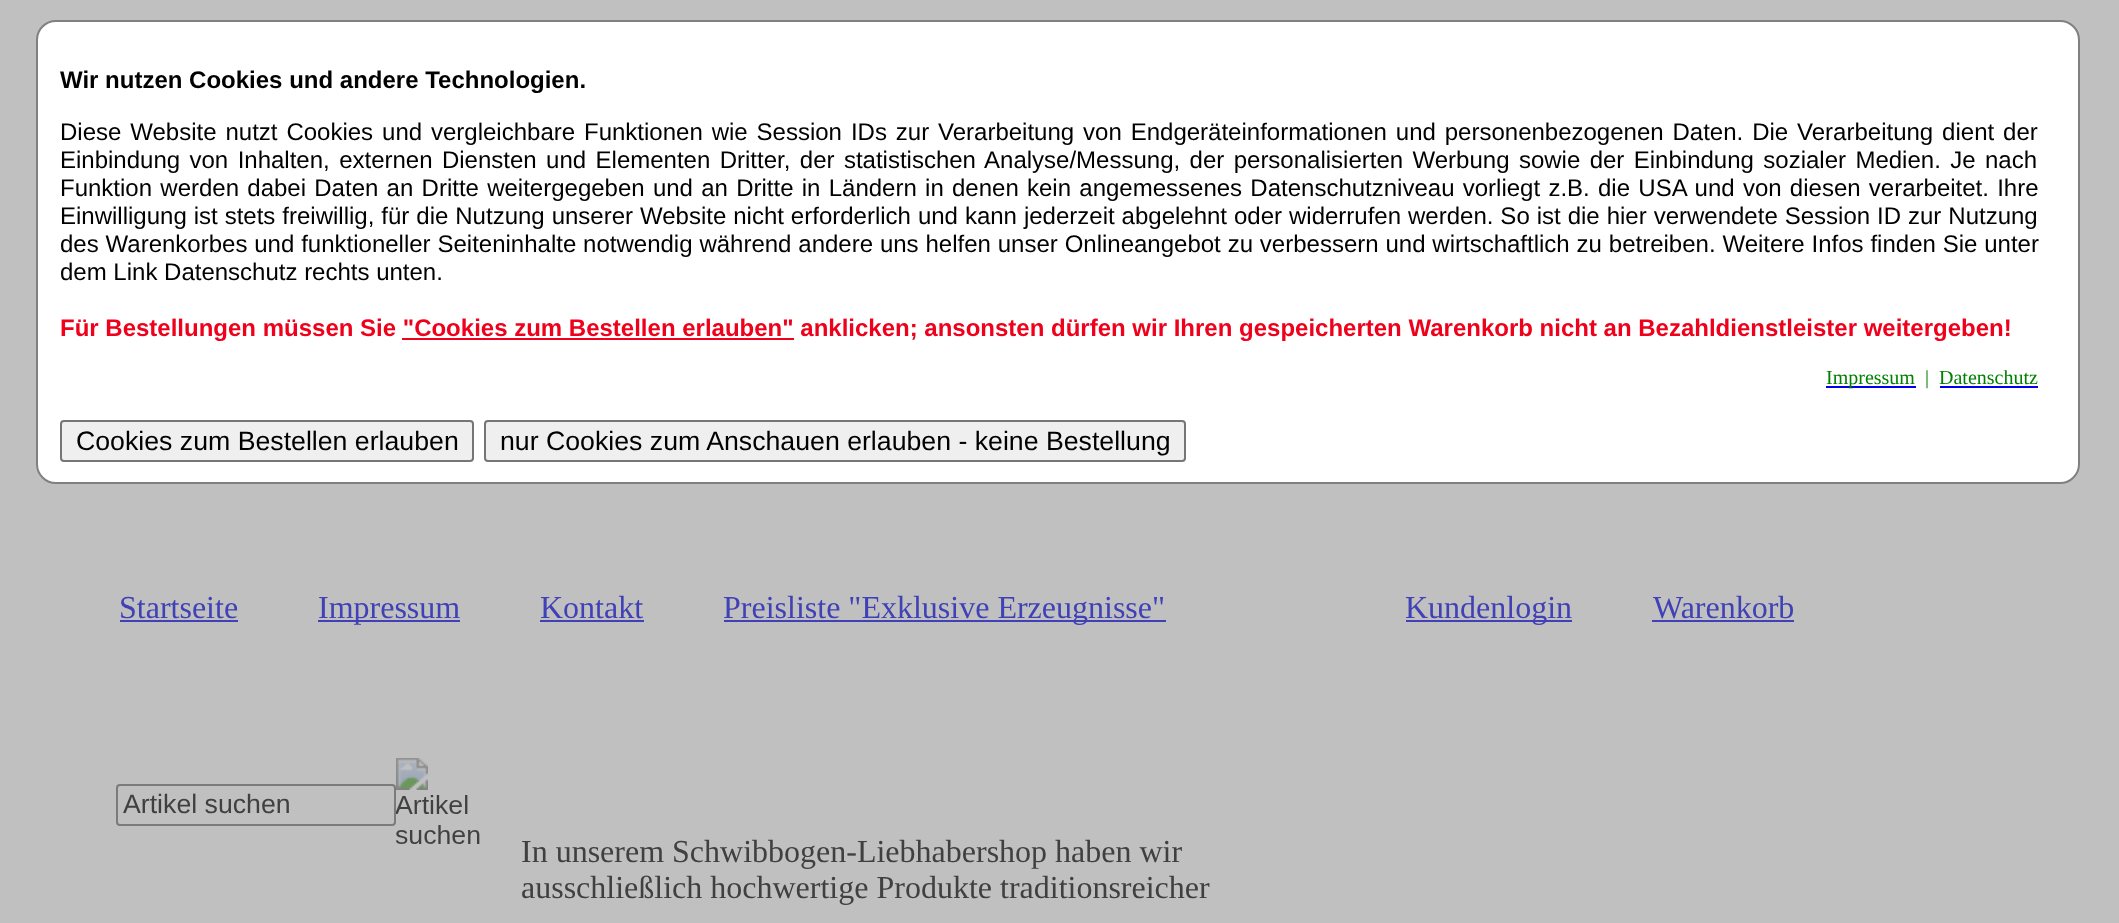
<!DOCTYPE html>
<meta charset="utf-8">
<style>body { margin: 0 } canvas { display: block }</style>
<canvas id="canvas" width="2119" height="923"></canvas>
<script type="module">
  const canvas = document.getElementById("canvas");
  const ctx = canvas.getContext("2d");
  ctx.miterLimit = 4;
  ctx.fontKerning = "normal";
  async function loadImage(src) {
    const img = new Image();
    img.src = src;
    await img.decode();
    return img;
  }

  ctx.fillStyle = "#c0c0c0";
  ctx.fillRect(0, 0, 2119, 923);
  ctx.fillStyle = "#ffffff";
  ctx.beginPath();
  ctx.roundRect(37, 21, 2042, 462, 19);
  ctx.fill();
  ctx.strokeStyle = "#808080";
  ctx.lineWidth = 2;
  ctx.stroke();
  ctx.font = "bold 24px Liberation Sans";
  ctx.fillStyle = "#000000";
  ctx.fillText("Wir nutzen Cookies und andere Technologien.", 60, 88);
  ctx.wordSpacing = "2.25px";
  ctx.font = "24px Liberation Sans";
  ctx.fillText("Diese Website nutzt Cookies und vergleichbare Funktionen wie Session IDs zur Verarbeitung von Endgeräteinformationen und personenbezogenen Daten. Die Verarbeitung dient der", 60, 140);
  ctx.wordSpacing = "2.75px";
  ctx.fillText("Einbindung von Inhalten, externen Diensten und Elementen Dritter, der statistischen Analyse/Messung, der personalisierten Werbung sowie der Einbindung sozialer Medien. Je nach", 60, 168);
  ctx.wordSpacing = "1.6px";
  ctx.fillText("Funktion werden dabei Daten an Dritte weitergegeben und an Dritte in Ländern in denen kein angemessenes Datenschutzniveau vorliegt z.B. die USA und von diesen verarbeitet. Ihre", 60, 196);
  ctx.wordSpacing = "0.3px";
  ctx.fillText("Einwilligung ist stets freiwillig, für die Nutzung unserer Website nicht erforderlich und kann jederzeit abgelehnt oder widerrufen werden. So ist die hier verwendete Session ID zur Nutzung", 60, 224);
  ctx.wordSpacing = "0.2px";
  ctx.fillText("des Warenkorbes und funktioneller Seiteninhalte notwendig während andere uns helfen unser Onlineangebot zu verbessern und wirtschaftlich zu betreiben. Weitere Infos finden Sie unter", 60, 252);
  ctx.wordSpacing = "0px";
  ctx.fillText("dem Link Datenschutz rechts unten.", 60, 280);
  ctx.font = "bold 24px Liberation Sans";
  ctx.fillStyle = "#ef001b";
  ctx.fillText("Für Bestellungen müssen Sie \"Cookies zum Bestellen erlauben\" anklicken; ansonsten dürfen wir Ihren gespeicherten Warenkorb nicht an Bezahldienstleister weitergeben!", 60, 336);
  ctx.fillRect(402, 338, 392, 2);
  ctx.fillStyle = "#0000ee";
  ctx.fillRect(1826, 386, 90, 2);
  ctx.font = "20px Liberation Serif";
  ctx.fillStyle = "#008000";
  ctx.fillText("Impressum", 1826, 384);
  ctx.fillText("|", 1925, 384);
  ctx.fillText("Datenschutz", 1939, 384);
  ctx.fillStyle = "#0000ee";
  ctx.fillRect(1940, 386, 98, 2);
  ctx.fillStyle = "#efefef";
  ctx.beginPath();
  ctx.roundRect(61, 421, 412, 40, 3);
  ctx.fill();
  ctx.strokeStyle = "#767676";
  ctx.stroke();
  ctx.font = "26.7px Liberation Sans";
  ctx.fillStyle = "#000000";
  ctx.fillText("Cookies zum Bestellen erlauben", 76, 450);
  ctx.fillStyle = "#efefef";
  ctx.beginPath();
  ctx.roundRect(485, 421, 700, 40, 3);
  ctx.fill();
  ctx.stroke();
  ctx.fillStyle = "#000000";
  ctx.fillText("nur Cookies zum Anschauen erlauben - keine Bestellung", 500, 450);
  ctx.font = "32px Liberation Serif";
  ctx.fillStyle = "#4040b7";
  ctx.fillText("Startseite", 119, 618);
  ctx.fillRect(120, 620, 118, 2);
  ctx.fillRect(318, 620, 142, 2);
  ctx.fillText("Impressum", 318, 618);
  ctx.fillText("Kontakt", 540, 618);
  ctx.fillRect(540, 620, 104, 2);
  ctx.fillRect(724, 620, 442, 2);
  ctx.fillText("Preisliste \"Exklusive Erzeugnisse\"", 723, 618);
  ctx.fillRect(1406, 620, 166, 2);
  ctx.fillText("Kundenlogin", 1405, 618);
  ctx.fillText("Warenkorb", 1653, 618);
  ctx.fillRect(1652, 620, 142, 2);
  ctx.beginPath();
  ctx.roundRect(117, 785, 278, 40, 3);
  ctx.strokeStyle = "#7b7b7b";
  ctx.stroke();
  ctx.font = "26.7px Liberation Sans";
  ctx.fillStyle = "#404040";
  ctx.fillText("Artikel suchen", 123, 813);
  ctx.drawImage(await loadImage("img1.png"), 396, 758, 84, 86);
  ctx.font = "32px Liberation Serif";
  ctx.fillText("In unserem Schwibbogen-Liebhabershop haben wir", 521, 862);
  ctx.fillText("ausschließlich hochwertige Produkte traditionsreicher", 521, 898);
</script>
